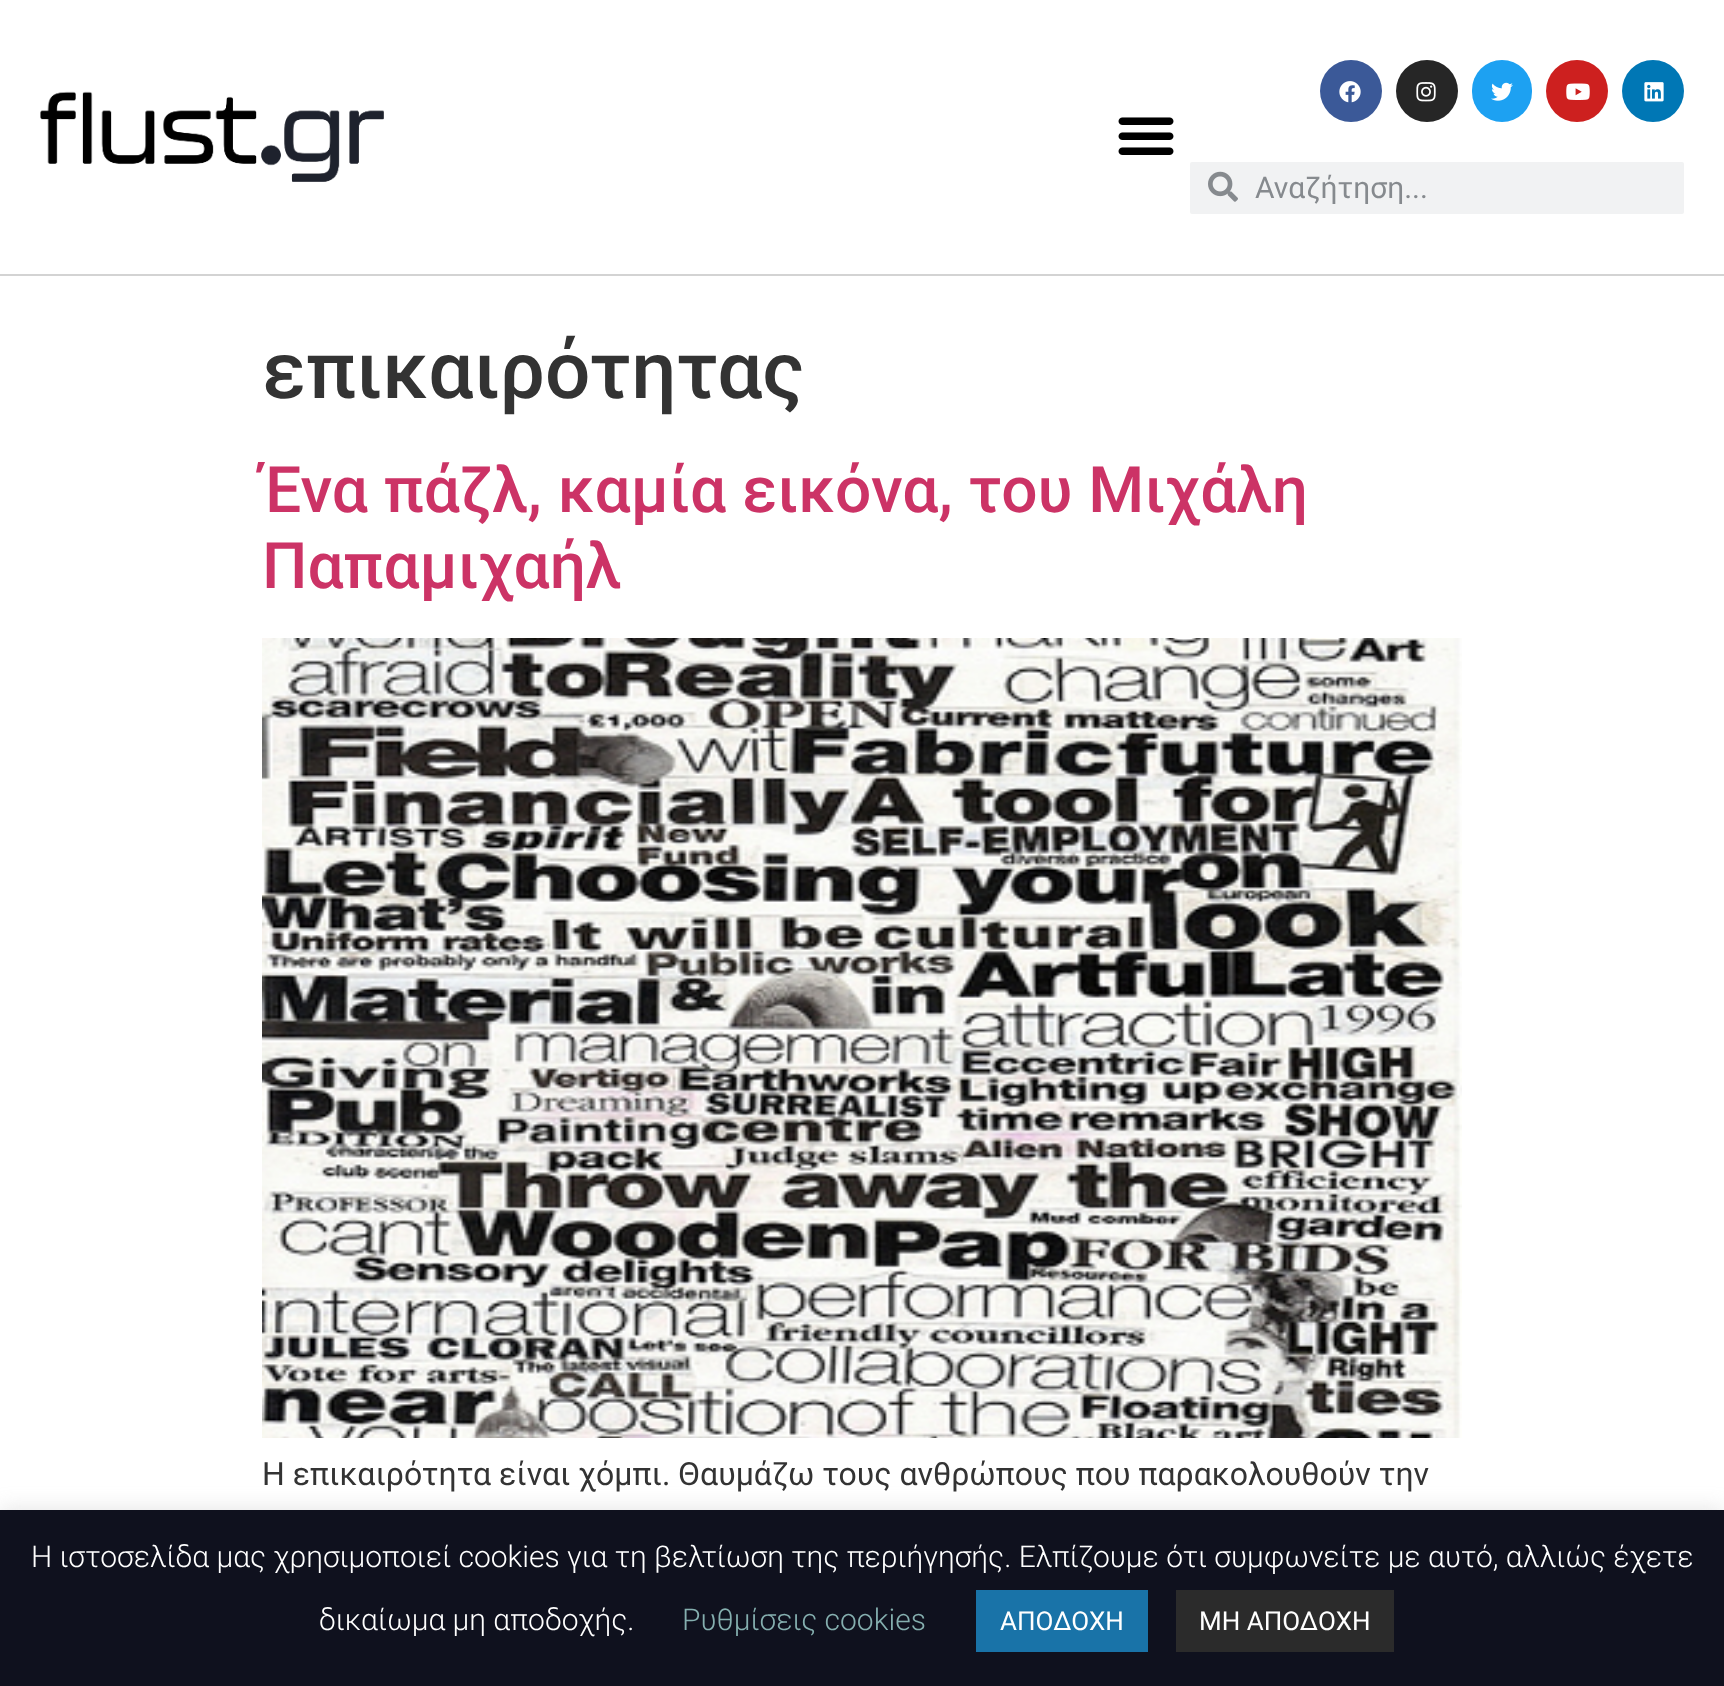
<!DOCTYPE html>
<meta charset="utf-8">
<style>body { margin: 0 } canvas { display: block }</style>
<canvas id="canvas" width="1724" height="1686"></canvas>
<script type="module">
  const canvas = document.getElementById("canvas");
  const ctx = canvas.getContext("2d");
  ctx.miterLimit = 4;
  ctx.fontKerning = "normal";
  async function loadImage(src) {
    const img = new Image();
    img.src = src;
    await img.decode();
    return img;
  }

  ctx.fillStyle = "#ffffff";
  ctx.fillRect(0, 0, 1724, 1686);
  ctx.fillStyle = "#d3d3d3";
  ctx.fillRect(0, 274, 1724, 2);
  ctx.drawImage(await loadImage("img1.png"), 40, 91, 344, 91);
  ctx.drawImage(await loadImage("img2.png"), 1118, 117, 56, 38);
  ctx.fillStyle = "#3b5998";
  ctx.beginPath();
  ctx.arc(1351, 91, 31, 0, Math.PI * 2);
  ctx.fill();
  ctx.drawImage(await loadImage("img3.png"), 1339, 81, 22, 22);
  ctx.fillStyle = "#262626";
  ctx.beginPath();
  ctx.arc(1427, 91, 31, 0, Math.PI * 2);
  ctx.fill();
  ctx.drawImage(await loadImage("img4.png"), 1416, 82, 20, 20);
  ctx.fillStyle = "#1da1f2";
  ctx.beginPath();
  ctx.roundRect(1472, 60, 60, 62, 30);
  ctx.fill();
  ctx.drawImage(await loadImage("img5.png"), 1491, 82, 22, 19);
  ctx.fillStyle = "#cd201f";
  ctx.beginPath();
  ctx.arc(1577, 91, 31, 0, Math.PI * 2);
  ctx.fill();
  ctx.drawImage(await loadImage("img6.png"), 1566, 83, 24, 17);
  ctx.fillStyle = "#0077b5";
  ctx.beginPath();
  ctx.arc(1653, 91, 31, 0, Math.PI * 2);
  ctx.fill();
  ctx.drawImage(await loadImage("img7.png"), 1644, 82, 20, 20);
  ctx.fillStyle = "#f1f2f3";
  ctx.beginPath();
  ctx.roundRect(1190, 162, 494, 52, 2);
  ctx.fill();
  ctx.drawImage(await loadImage("img8.png"), 1208, 171, 30, 31);
  ctx.font = "30px Roboto";
  ctx.fillStyle = "#868a8e";
  ctx.fillText("Αναζήτηση...", 1255, 198);
  ctx.font = "500 80px Roboto";
  ctx.fillStyle = "#333333";
  ctx.fillText("επικαιρότητας", 262, 398);
  ctx.font = "500 64px Roboto";
  ctx.fillStyle = "#cc3366";
  ctx.fillText("Ένα πάζλ, καμία εικόνα, του Μιχάλη", 262, 512);
  ctx.fillText("Παπαμιχαήλ", 262, 588);
  ctx.drawImage(await loadImage("img9.png"), 262, 638, 1200, 800);
  ctx.font = "32px Roboto";
  ctx.fillStyle = "#333333";
  ctx.fillText("Η επικαιρότητα είναι χόμπι. Θαυμάζω τους ανθρώπους που παρακολουθούν την", 262, 1485);
  ctx.fillStyle = "rgba(172, 171, 171, 0.3)";
  ctx.filter = "blur(10px)";
  ctx.beginPath();
  ctx.rect(0, 1508, 1724, 176);
  ctx.fill();
  ctx.filter = "none";
  ctx.fillStyle = "#0f111e";
  ctx.fillRect(0, 1510, 1724, 176);
  ctx.font = "300 30px Roboto";
  ctx.fillStyle = "#ffffff";
  ctx.fillText("Η ιστοσελίδα μας χρησιμοποιεί cookies για τη βελτίωση της περιήγησής. Ελπίζουμε ότι συμφωνείτε με αυτό, αλλιώς έχετε", 31, 1567);
  ctx.fillText("δικαίωμα μη αποδοχής.", 319, 1630);
  ctx.fillStyle = "#85afaf";
  ctx.fillText("Ρυθμίσεις cookies", 682, 1630);
  ctx.fillStyle = "#1973a8";
  ctx.fillRect(976, 1590, 172, 62);
  ctx.font = "26px Roboto";
  ctx.fillStyle = "#ffffff";
  ctx.fillText("ΑΠΟΔΟΧΗ", 1000, 1630);
  ctx.fillStyle = "#2b2b2b";
  ctx.fillRect(1176, 1590, 218, 62);
  ctx.fillStyle = "#ffffff";
  ctx.fillText("ΜΗ ΑΠΟΔΟΧΗ", 1199, 1630);
</script>
